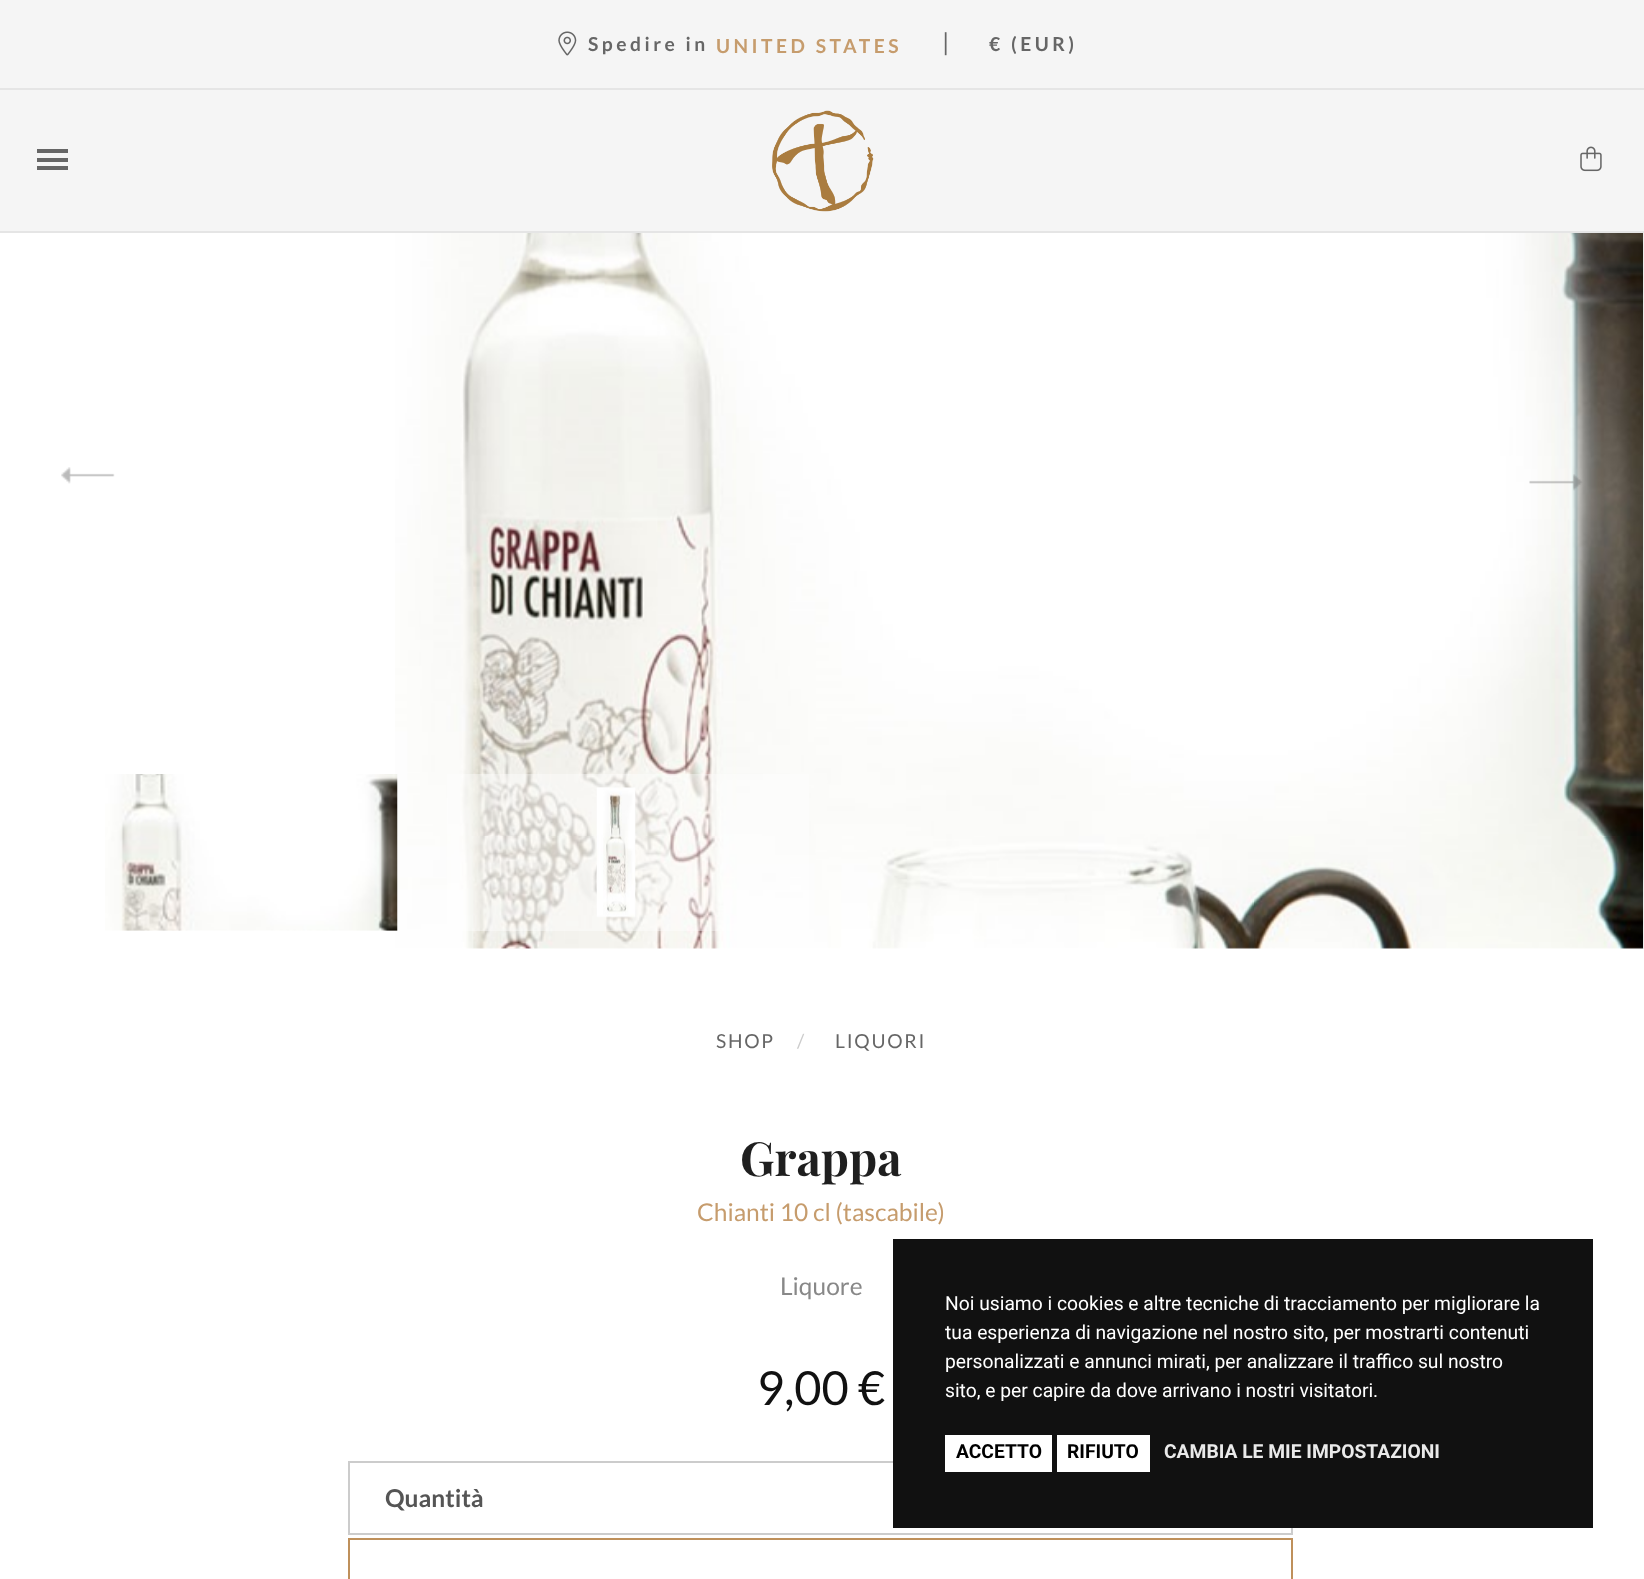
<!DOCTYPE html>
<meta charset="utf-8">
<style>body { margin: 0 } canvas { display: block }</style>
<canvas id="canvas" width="1644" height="1579"></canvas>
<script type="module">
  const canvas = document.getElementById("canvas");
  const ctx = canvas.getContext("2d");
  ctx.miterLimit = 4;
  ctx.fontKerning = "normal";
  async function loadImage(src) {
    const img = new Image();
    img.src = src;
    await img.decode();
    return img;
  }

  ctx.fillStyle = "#ffffff";
  ctx.fillRect(0, 0, 1644, 1579);
  ctx.fillStyle = "#f5f5f5";
  ctx.fillRect(0, 0, 1644, 231);
  ctx.drawImage(await loadImage("img1.png"), 558, 31, 19, 25);
  ctx.letterSpacing = "3.5px";
  ctx.font = "bold 19.25px Lato";
  ctx.fillStyle = "#666666";
  ctx.fillText("Spedire in", 588, 51);
  ctx.fillStyle = "#c69c6d";
  ctx.fillText("UNITED STATES", 716, 53);
  ctx.letterSpacing = "0px";
  ctx.font = "24.5px Lato";
  ctx.fillStyle = "#666666";
  ctx.fillText("|", 942, 51);
  ctx.letterSpacing = "3.5px";
  ctx.font = "bold 19.25px Lato";
  ctx.fillText("€ (EUR)", 989, 51);
  ctx.fillStyle = "#e5e5e5";
  ctx.fillRect(0, 88, 1644, 2);
  ctx.fillStyle = "#666666";
  ctx.fillRect(37, 158, 31, 4);
  ctx.fillRect(37, 149, 31, 4);
  ctx.fillRect(37, 166, 31, 4);
  ctx.drawImage(await loadImage("img2.png"), 772, 110, 102, 102);
  ctx.drawImage(await loadImage("img3.png"), 1580, 146, 22, 26);
  ctx.fillStyle = "#e5e5e5";
  ctx.fillRect(0, 231, 1644, 2);
  ctx.fillStyle = "#ededed";
  ctx.fillRect(1643, 233, 1, 716);
  ctx.drawImage(await loadImage("img4.png"), 395, 233, 1248, 716);
  ctx.drawImage(await loadImage("img5.png"), 61, 467, 54, 17);
  ctx.drawImage(await loadImage("img6.png"), 1529, 474, 54, 17);
  ctx.fillStyle = "#ffffff";
  ctx.fillRect(395, 808, 2, 81);
  ctx.drawImage(await loadImage("img7.png"), 105, 774, 293, 157);
  ctx.fillStyle = "rgba(255, 255, 255, 0.4)";
  ctx.fillRect(447, 774, 362, 157);
  ctx.drawImage(await loadImage("img8.png"), 596, 787, 40, 131);
  ctx.letterSpacing = "1.75px";
  ctx.font = "19.25px Lato";
  ctx.fillStyle = "#666666";
  ctx.fillText("SHOP", 716, 1048);
  ctx.fillStyle = "#cccccc";
  ctx.fillText("/", 797, 1048);
  ctx.fillStyle = "#666666";
  ctx.fillText("LIQUORI", 835, 1048);
  ctx.letterSpacing = "0px";
  ctx.font = "bold 47px Playfair Display";
  ctx.fillStyle = "#1f1f1f";
  ctx.fillText("Grappa", 740, 1176);
  ctx.font = "24.5px Lato";
  ctx.fillStyle = "#c69c6d";
  ctx.fillText("Chianti 10 cl (tascabile)", 697, 1221);
  ctx.fillStyle = "#888888";
  ctx.fillText("Liquore", 780, 1295);
  ctx.font = "47px Lato";
  ctx.fillStyle = "#111111";
  ctx.fillText("9,00 €", 757, 1405);
  ctx.strokeStyle = "#cccccc";
  ctx.lineWidth = 2;
  ctx.strokeRect(349, 1462, 943, 72);
  ctx.font = "bold 24.5px Lato";
  ctx.fillStyle = "#555555";
  ctx.fillText("Quantità", 385, 1507);
  ctx.strokeStyle = "#bf905b";
  ctx.strokeRect(349, 1539, 943, 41);
  ctx.fillStyle = "#111111";
  ctx.fillRect(893, 1239, 700, 289);
  ctx.font = "19.25px Roboto";
  ctx.fillStyle = "#ffffff";
  ctx.fillText("Noi usiamo i cookies e altre tecniche di tracciamento per migliorare la", 945, 1310);
  ctx.fillText("tua esperienza di navigazione nel nostro sito, per mostrarti contenuti", 945, 1339);
  ctx.fillText("personalizzati e annunci mirati, per analizzare il traffico sul nostro", 945, 1368);
  ctx.fillText("sito, e per capire da dove arrivano i nostri visitatori.", 945, 1397);
  ctx.fillRect(945, 1435, 107, 37);
  ctx.font = "bold 19.25px Roboto";
  ctx.fillStyle = "#000000";
  ctx.fillText("ACCETTO", 956, 1458);
  ctx.fillStyle = "#ffffff";
  ctx.fillRect(1057, 1435, 93, 37);
  ctx.fillStyle = "#000000";
  ctx.fillText("RIFIUTO", 1067, 1458);
  ctx.fillStyle = "#eaeaea";
  ctx.fillText("CAMBIA LE MIE IMPOSTAZIONI", 1164, 1458);
</script>
